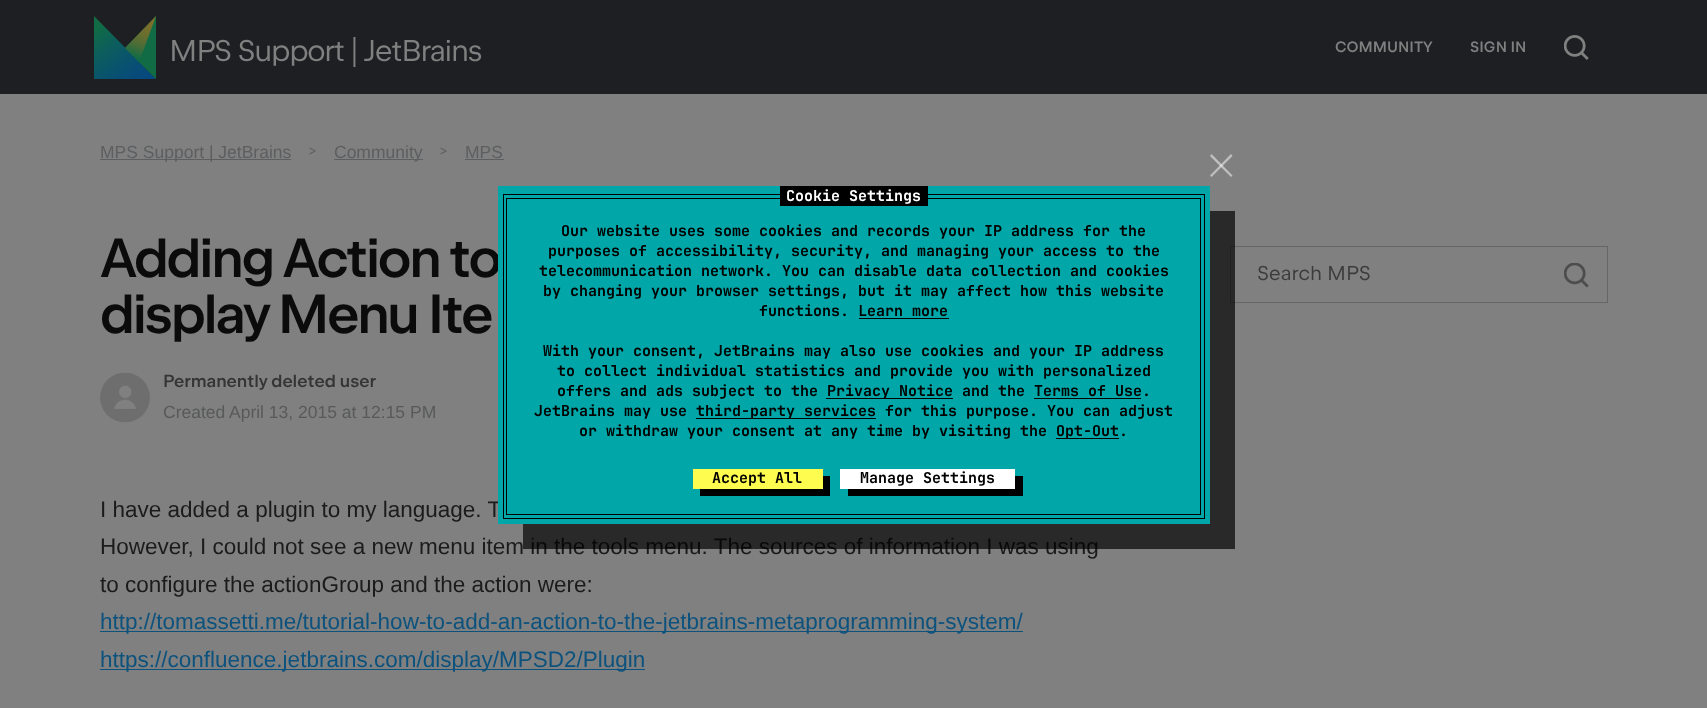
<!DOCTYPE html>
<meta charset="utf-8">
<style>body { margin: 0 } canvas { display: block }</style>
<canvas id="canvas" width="1707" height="708"></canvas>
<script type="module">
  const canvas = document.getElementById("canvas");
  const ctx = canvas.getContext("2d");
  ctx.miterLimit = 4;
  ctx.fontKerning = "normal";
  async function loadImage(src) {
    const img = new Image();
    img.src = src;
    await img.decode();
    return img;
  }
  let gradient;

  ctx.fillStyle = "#808080";
  ctx.fillRect(0, 0, 1707, 708);
  ctx.fillStyle = "#1e1f22";
  ctx.fillRect(0, 0, 1707, 94);
  gradient = ctx.createLinearGradient(141, 99, 82, 23);
  gradient.addColorStop(0.09, "#064880");
  gradient.addColorStop(0.21, "#074a7b");
  gradient.addColorStop(0.4, "#09526f");
  gradient.addColorStop(0.63, "#0c5e5c");
  gradient.addColorStop(0.87, "#116c45");
  ctx.fillStyle = gradient;
  ctx.beginPath();
  ctx.moveTo(94, 79);
  ctx.lineTo(156, 79);
  ctx.lineTo(94, 16);
  ctx.closePath();
  ctx.fill();
  gradient = ctx.createLinearGradient(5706, 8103, -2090, 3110);
  gradient.addColorStop(0.09, "#064880");
  gradient.addColorStop(0.21, "#074a7b");
  gradient.addColorStop(0.4, "#09526f");
  gradient.addColorStop(0.63, "#0c5e5c");
  gradient.addColorStop(0.87, "#116c45");
  ctx.fillStyle = gradient;
  ctx.beginPath();
  ctx.moveTo(156, 79);
  ctx.lineTo(125, 48);
  ctx.lineTo(156, 16);
  ctx.closePath();
  ctx.fill();
  gradient = ctx.createLinearGradient(129, 63, 150, 6.1);
  gradient.addColorStop(0.12, "#116c45");
  gradient.addColorStop(0.13, "#146c44");
  gradient.addColorStop(0.22, "#2d6c3e");
  gradient.addColorStop(0.3, "#436d38");
  gradient.addColorStop(0.39, "#566d34");
  gradient.addColorStop(0.49, "#656e30");
  gradient.addColorStop(0.58, "#716e2d");
  gradient.addColorStop(0.69, "#796e2b");
  gradient.addColorStop(0.8, "#7e6e2a");
  gradient.addColorStop(0.95, "#806e29");
  ctx.fillStyle = gradient;
  ctx.beginPath();
  ctx.moveTo(139, 62);
  ctx.lineTo(125, 48);
  ctx.lineTo(156, 16);
  ctx.closePath();
  ctx.fill();
  ctx.letterSpacing = "-1.25px";
  ctx.wordSpacing = "0.5px";
  ctx.font = "30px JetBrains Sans";
  ctx.fillStyle = "#808080";
  ctx.fillText("MPS Support | JetBrains", 169, 61);
  ctx.letterSpacing = "0px";
  ctx.wordSpacing = "0px";
  ctx.font = "600 15px JetBrains Sans";
  ctx.fillText("COMMUNITY", 1335, 52);
  ctx.fillText("SIGN IN", 1470, 52);
  ctx.drawImage(await loadImage("img1.png"), 1564, 35, 25, 25);
  ctx.fillStyle = "#5c5e60";
  ctx.fillRect(100, 159, 191, 1);
  ctx.font = "17.5px Liberation Sans";
  ctx.fillText("MPS Support | JetBrains", 100, 158);
  ctx.font = "17.5px JetBrains Sans";
  ctx.fillText(">", 308, 156);
  ctx.fillRect(334, 159, 89, 1);
  ctx.font = "17.5px Liberation Sans";
  ctx.fillText("Community", 334, 158);
  ctx.font = "17.5px JetBrains Sans";
  ctx.fillText(">", 439, 156);
  ctx.font = "17.5px Liberation Sans";
  ctx.fillText("MPS", 465, 158);
  ctx.fillRect(465, 159, 39, 1);
  ctx.letterSpacing = "-2.5px";
  ctx.font = "600 55px JetBrains Sans";
  ctx.fillStyle = "#0b0b0b";
  ctx.fillText("Adding Action to", 100, 277);
  ctx.fillText("display Menu Ite", 100, 333);
  ctx.drawImage(await loadImage("img2.png"), 100, 372, 50, 51);
  ctx.letterSpacing = "0px";
  ctx.font = "600 17.5px JetBrains Sans";
  ctx.fillStyle = "#353535";
  ctx.fillText("Permanently deleted user", 163, 387);
  ctx.font = "17.5px Liberation Sans";
  ctx.fillStyle = "#58595a";
  ctx.fillText("Created", 163, 418);
  ctx.fillText("April 13, 2015 at 12:15 PM", 229, 418);
  ctx.font = "22.5px Liberation Sans";
  ctx.fillStyle = "#1b1b1b";
  ctx.fillText("I have added a plugin to my language. T", 100, 517);
  ctx.fillText("However, I could not see a new menu item in the tools menu. The sources of information I was using", 100, 554);
  ctx.fillText("to configure the actionGroup and the action were:", 100, 592);
  ctx.fillStyle = "#0c527d";
  ctx.fillRect(100, 631, 923, 1);
  ctx.fillText("http://tomassetti.me/tutorial-how-to-add-an-action-to-the-jetbrains-metaprogramming-system/", 100, 629);
  ctx.fillRect(100, 669, 545, 1);
  ctx.fillText("https://confluence.jetbrains.com/display/MPSD2/Plugin", 100, 667);
  ctx.strokeStyle = "#666666";
  ctx.strokeRect(1230.5, 246.5, 377, 56);
  ctx.font = "20px JetBrains Sans";
  ctx.fillStyle = "#3b3b3b";
  ctx.fillText("Search MPS", 1257, 280);
  ctx.drawImage(await loadImage("img3.png"), 1564, 263, 25, 25);
  ctx.fillStyle = "rgba(0, 0, 0, 0.68)";
  ctx.beginPath();
  ctx.moveTo(523, 524);
  ctx.lineTo(523, 549);
  ctx.lineTo(1235, 549);
  ctx.lineTo(1235, 211);
  ctx.lineTo(1210, 211);
  ctx.lineTo(1210, 524);
  ctx.closePath();
  ctx.fill();
  ctx.fillStyle = "#01a7a8";
  ctx.fillRect(498, 186, 712, 338);
  ctx.fillStyle = "#bfbfbf";
  ctx.beginPath();
  ctx.moveTo(1210, 175.5);
  ctx.lineTo(1231, 154);
  ctx.lineTo(1232.5, 156);
  ctx.lineTo(1211.5, 177);
  ctx.closePath();
  ctx.fill();
  ctx.fillStyle = "rgba(255, 255, 255, 0.5)";
  ctx.beginPath();
  ctx.moveTo(1211.5, 154);
  ctx.lineTo(1232.5, 175.5);
  ctx.lineTo(1231, 177);
  ctx.lineTo(1210, 156);
  ctx.closePath();
  ctx.fill();
  ctx.fillStyle = "#000000";
  ctx.fillRect(506, 198, 695, 1);
  ctx.fillRect(1200, 198, 1, 317);
  ctx.fillRect(506, 198, 1, 271);
  ctx.fillRect(503, 194, 702, 1);
  ctx.fillRect(780, 186, 148, 20);
  ctx.font = "bold 15px JetBrains Mono";
  ctx.fillStyle = "#ffffff";
  ctx.fillText("Cookie Settings", 786, 201);
  ctx.fillStyle = "#000000";
  ctx.fillRect(1204, 194, 1, 325);
  ctx.fillRect(503, 194, 1, 274);
  ctx.fillText("Our website uses some cookies and records your IP address for the", 561, 236);
  ctx.fillText("purposes of accessibility, security, and managing your access to the", 548, 256);
  ctx.fillText("telecommunication network. You can disable data collection and cookies", 539, 276);
  ctx.fillText("by changing your browser settings, but it may affect how this website", 543, 296);
  ctx.fillText("functions. Learn more", 759, 316);
  ctx.fillRect(859, 318, 90, 1);
  ctx.fillText("With your consent, JetBrains may also use cookies and your IP address", 543, 356);
  ctx.fillText("to collect individual statistics and provide you with personalized", 557, 376);
  ctx.fillText("offers and ads subject to the", 557, 396);
  ctx.fillRect(826, 398, 127, 1);
  ctx.fillText("Privacy Notice and the Terms of Use.", 827, 396);
  ctx.fillRect(1034, 398, 107, 1);
  ctx.fillText("JetBrains may use", 534, 416);
  ctx.fillRect(696, 418, 180, 1);
  ctx.fillText("third-party services for this purpose. You can adjust", 696, 416);
  ctx.fillText("or withdraw your consent at any time by visiting the", 579, 436);
  ctx.fillRect(1056, 438, 63, 1);
  ctx.fillText("Opt-Out.", 1056, 436);
  ctx.fillRect(506, 514, 695, 1);
  ctx.fillRect(506, 469, 1, 46);
  ctx.fillRect(503, 518, 702, 1);
  ctx.fillRect(503, 468, 1, 51);
  ctx.beginPath();
  ctx.moveTo(700, 489);
  ctx.lineTo(700, 496);
  ctx.lineTo(830, 496);
  ctx.lineTo(830, 476);
  ctx.lineTo(822, 476);
  ctx.lineTo(822, 489);
  ctx.closePath();
  ctx.fill();
  ctx.fillStyle = "#fefc4f";
  ctx.fillRect(693, 469, 130, 20);
  ctx.fillStyle = "#000000";
  ctx.fillText("Accept All", 712, 483);
  ctx.beginPath();
  ctx.moveTo(848, 489);
  ctx.lineTo(848, 496);
  ctx.lineTo(1023, 496);
  ctx.lineTo(1023, 476);
  ctx.lineTo(1015, 476);
  ctx.lineTo(1015, 489);
  ctx.closePath();
  ctx.fill();
  ctx.fillStyle = "#ffffff";
  ctx.fillRect(840, 469, 175, 20);
  ctx.fillStyle = "#000000";
  ctx.fillText("Manage Settings", 860, 483);
</script>
